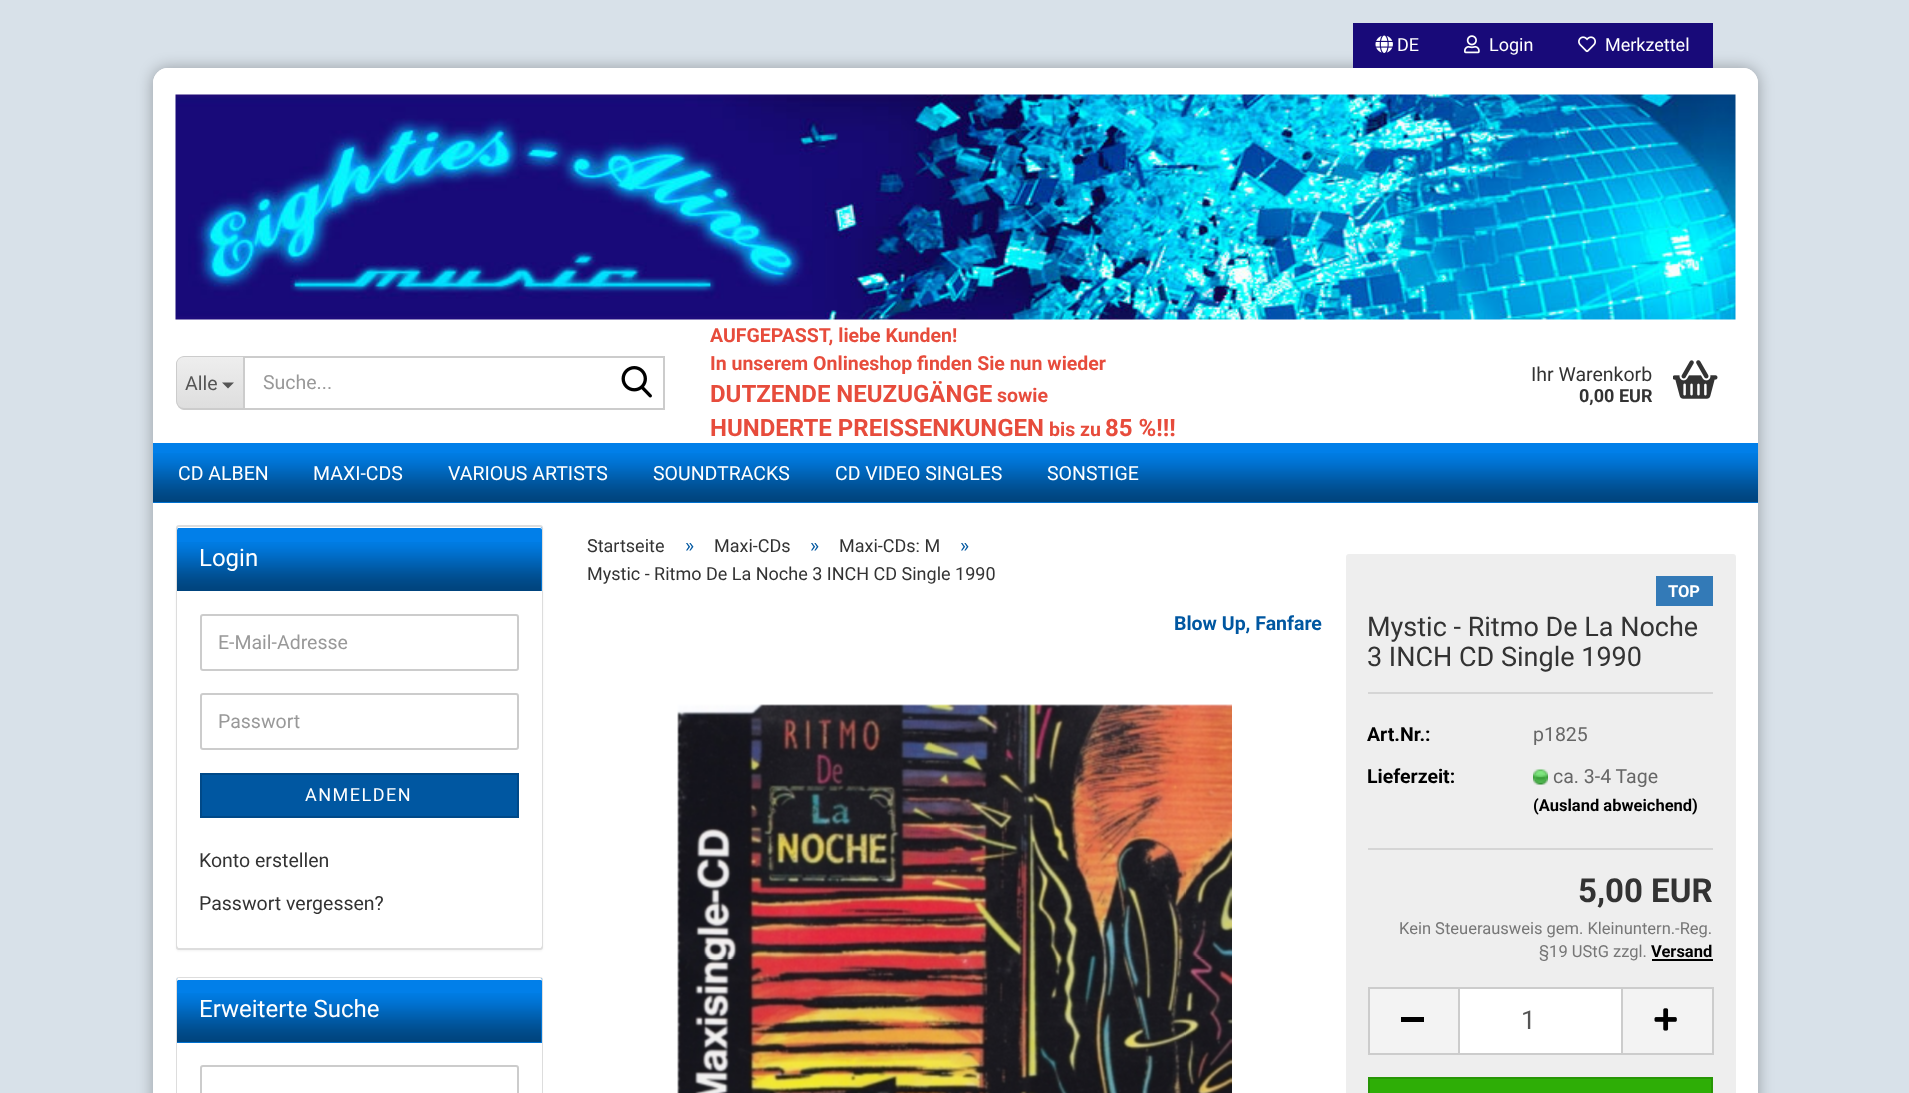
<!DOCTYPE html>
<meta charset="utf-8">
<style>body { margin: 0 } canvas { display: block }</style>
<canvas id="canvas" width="1909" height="1093"></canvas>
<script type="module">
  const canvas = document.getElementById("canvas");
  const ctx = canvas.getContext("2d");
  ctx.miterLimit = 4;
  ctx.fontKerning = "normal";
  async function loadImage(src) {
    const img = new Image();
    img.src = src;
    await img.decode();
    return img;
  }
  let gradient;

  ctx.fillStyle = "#d8e1e9";
  ctx.fillRect(0, 0, 1909, 1093);
  ctx.fillStyle = "rgba(0, 0, 0, 0.3)";
  ctx.filter = "blur(7.5px)";
  ctx.beginPath();
  ctx.roundRect(153, 68, 1605, 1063, 15);
  ctx.fill();
  ctx.filter = "none";
  ctx.fillStyle = "#ffffff";
  ctx.beginPath();
  ctx.roundRect(153, 68, 1605, 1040, 15);
  ctx.fill();
  ctx.beginPath();
  ctx.roundRect(153, 68, 1605, 435, [15, 15, 3, 3]);
  ctx.fill();
  ctx.fillStyle = "#180a79";
  ctx.fillRect(1353, 23, 360, 45);
  ctx.drawImage(await loadImage("img1.png"), 1375, 35, 18, 18);
  ctx.font = "18px Roboto";
  ctx.fillStyle = "#ffffff";
  ctx.fillText("DE", 1397, 51);
  ctx.drawImage(await loadImage("img2.png"), 1464, 35, 16, 19);
  ctx.fillText("Login", 1489, 51);
  ctx.drawImage(await loadImage("img3.png"), 1578, 36, 18, 17);
  ctx.fillText("Merkzettel", 1605, 51);
  ctx.drawImage(await loadImage("img4.png"), 175, 94, 1561, 226);
  ctx.save();
  ctx.beginPath();
  ctx.roundRect(176, 356, 67, 54, [9, 0, 0, 9]);
  ctx.clip();
  gradient = ctx.createLinearGradient(210, 357, 210, 408);
  gradient.addColorStop(0, "#eeeeee");
  gradient.addColorStop(1, "#dedede");
  ctx.fillStyle = gradient;
  ctx.fillRect(176, 357, 67, 51);
  ctx.restore();
  ctx.fillStyle = "#cccccc";
  ctx.beginPath();
  ctx.moveTo(184, 356);
  ctx.lineTo(243, 356);
  ctx.lineTo(243, 410);
  ctx.lineTo(184, 410);
  ctx.bezierCurveTo(180, 410, 176, 405, 176, 400);
  ctx.lineTo(176, 364);
  ctx.bezierCurveTo(176, 360, 180, 356, 184, 356);
  ctx.closePath();
  ctx.moveTo(184, 357);
  ctx.lineTo(243, 357);
  ctx.lineTo(243, 408);
  ctx.lineTo(184, 408);
  ctx.bezierCurveTo(180, 408, 177, 405, 177, 400);
  ctx.lineTo(177, 364);
  ctx.bezierCurveTo(177, 360, 180, 357, 184, 357);
  ctx.closePath();
  ctx.fill("evenodd");
  ctx.font = "19.5px Roboto";
  ctx.fillStyle = "#555555";
  ctx.fillText("Alle", 185, 390);
  ctx.beginPath();
  ctx.moveTo(222, 382.5);
  ctx.lineTo(234, 382.5);
  ctx.lineTo(228, 388.5);
  ctx.closePath();
  ctx.fill();
  ctx.strokeStyle = "#cccccc";
  ctx.lineWidth = 2;
  ctx.strokeRect(244, 357, 420, 52);
  ctx.fillStyle = "#999999";
  ctx.fillText("Suche...", 263, 389);
  ctx.drawImage(await loadImage("img5.png"), 621, 366, 31, 32);
  ctx.font = "bold 19.5px Roboto";
  ctx.fillStyle = "#e74c3c";
  ctx.fillText("AUFGEPASST, liebe Kunden!", 710, 342);
  ctx.fillText("In unserem Onlineshop finden Sie nun wieder", 710, 370);
  ctx.font = "bold 24px Roboto";
  ctx.fillText("DUTZENDE NEUZUGÄNGE", 710, 402);
  ctx.font = "bold 19.5px Roboto";
  ctx.fillText("sowie", 997, 402);
  ctx.font = "bold 24px Roboto";
  ctx.fillText("HUNDERTE PREISSENKUNGEN", 710, 436);
  ctx.font = "bold 19.5px Roboto";
  ctx.fillText("bis zu", 1049, 436);
  ctx.font = "bold 24px Roboto";
  ctx.fillText("85 %!!!", 1105, 436);
  ctx.font = "19.5px Roboto";
  ctx.fillStyle = "#333333";
  ctx.fillText("Ihr Warenkorb", 1531, 381);
  ctx.font = "bold 18px Roboto";
  ctx.fillText("0,00 EUR", 1579, 402);
  ctx.drawImage(await loadImage("img6.png"), 1673, 360, 45, 39);
  ctx.fillStyle = "#017fe9";
  ctx.fillRect(153, 443, 1605, 60);
  ctx.drawImage(await loadImage("img7.png"), 153, 453, 1605, 50);
  ctx.font = "19.5px Roboto";
  ctx.fillStyle = "#ffffff";
  ctx.fillText("CD ALBEN", 178, 480);
  ctx.fillText("MAXI-CDS", 313, 480);
  ctx.fillText("VARIOUS ARTISTS", 448, 480);
  ctx.fillText("SOUNDTRACKS", 653, 480);
  ctx.fillText("CD VIDEO SINGLES", 835, 480);
  ctx.fillText("SONSTIGE", 1047, 480);
  ctx.fillStyle = "rgba(0, 0, 0, 0.05)";
  ctx.filter = "blur(1px)";
  ctx.beginPath();
  ctx.roundRect(176, 527, 367, 424, 3);
  ctx.fill();
  ctx.filter = "none";
  ctx.fillStyle = "#ffffff";
  ctx.beginPath();
  ctx.roundRect(177, 526, 365, 423, 2);
  ctx.fill();
  ctx.strokeStyle = "#dddddd";
  ctx.stroke();
  ctx.fillStyle = "#017fe9";
  ctx.beginPath();
  ctx.roundRect(177, 527, 365, 64, [1.5, 1.5, 0, 0]);
  ctx.fill();
  ctx.drawImage(await loadImage("img8.png"), 177, 542, 365, 49);
  ctx.fillStyle = "#ffffff";
  ctx.beginPath();
  ctx.moveTo(178, 528);
  ctx.lineTo(540, 528);
  ctx.bezierCurveTo(541, 528, 542, 529, 542, 530);
  ctx.bezierCurveTo(542, 529, 542, 527, 540, 527);
  ctx.lineTo(178, 527);
  ctx.bezierCurveTo(177, 527, 177, 529, 177, 530);
  ctx.closePath();
  ctx.fill();
  ctx.font = "24px Roboto";
  ctx.fillText("Login", 199, 566);
  ctx.beginPath();
  ctx.roundRect(177, 591, 365, 357, [0, 0, 3, 3]);
  ctx.fill();
  ctx.beginPath();
  ctx.roundRect(201, 615, 317, 55, 2);
  ctx.strokeStyle = "#cccccc";
  ctx.stroke();
  ctx.font = "19.5px Roboto";
  ctx.fillStyle = "#999999";
  ctx.fillText("E-Mail-Adresse", 218, 649);
  ctx.beginPath();
  ctx.roundRect(201, 694, 317, 55, 2);
  ctx.stroke();
  ctx.fillText("Passwort", 218, 728);
  ctx.fillStyle = "#0057a1";
  ctx.beginPath();
  ctx.rect(201, 774, 317, 43);
  ctx.fill();
  ctx.strokeStyle = "#004988";
  ctx.stroke();
  ctx.letterSpacing = "1.5px";
  ctx.font = "18px Roboto";
  ctx.fillStyle = "#ffffff";
  ctx.fillText("ANMELDEN", 305, 801);
  ctx.letterSpacing = "0px";
  ctx.font = "19.5px Roboto";
  ctx.fillStyle = "#333333";
  ctx.fillText("Konto erstellen", 199, 867);
  ctx.fillText("Passwort vergessen?", 199, 910);
  ctx.beginPath();
  ctx.roundRect(177, 978, 365, 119, 2);
  ctx.strokeStyle = "#dddddd";
  ctx.stroke();
  ctx.fillStyle = "#017fe9";
  ctx.beginPath();
  ctx.roundRect(177, 978, 365, 65, [1.5, 1.5, 0, 0]);
  ctx.fill();
  ctx.drawImage(await loadImage("img9.png"), 177, 993, 365, 50);
  ctx.fillStyle = "#ffffff";
  ctx.beginPath();
  ctx.moveTo(178, 980);
  ctx.lineTo(540, 980);
  ctx.bezierCurveTo(541, 980, 542, 980, 542, 981);
  ctx.bezierCurveTo(542, 980, 542, 978, 540, 978);
  ctx.lineTo(178, 978);
  ctx.bezierCurveTo(177, 978, 177, 980, 177, 981);
  ctx.closePath();
  ctx.fill();
  ctx.font = "24px Roboto";
  ctx.fillText("Erweiterte Suche", 199, 1017);
  ctx.fillRect(177, 1043, 365, 50);
  ctx.beginPath();
  ctx.roundRect(201, 1066, 317, 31, 2);
  ctx.strokeStyle = "#cccccc";
  ctx.stroke();
  ctx.font = "18px Roboto";
  ctx.fillStyle = "#333333";
  ctx.fillText("Startseite", 587, 552);
  ctx.font = "19.5px Roboto";
  ctx.fillStyle = "#0057a1";
  ctx.fillText("»", 685, 552);
  ctx.font = "18px Roboto";
  ctx.fillStyle = "#333333";
  ctx.fillText("Maxi-CDs", 714, 552);
  ctx.font = "19.5px Roboto";
  ctx.fillStyle = "#0057a1";
  ctx.fillText("»", 810, 552);
  ctx.font = "18px Roboto";
  ctx.fillStyle = "#333333";
  ctx.fillText("Maxi-CDs: M", 839, 552);
  ctx.font = "19.5px Roboto";
  ctx.fillStyle = "#0057a1";
  ctx.fillText("»", 960, 552);
  ctx.font = "18px Roboto";
  ctx.fillStyle = "#333333";
  ctx.fillText("Mystic - Ritmo De La Noche 3 INCH CD Single 1990", 587, 580);
  ctx.font = "bold 19.5px Roboto";
  ctx.fillStyle = "#0057a1";
  ctx.fillText("Blow Up, Fanfare", 1174, 630);
  ctx.drawImage(await loadImage("img10.png"), 677, 704, 555, 389);
  ctx.fillStyle = "#eeeeee";
  ctx.beginPath();
  ctx.roundRect(1346, 554, 390, 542, 3);
  ctx.fill();
  ctx.fillStyle = "#337ab7";
  ctx.fillRect(1656, 576, 57, 30);
  ctx.font = "bold 16.5px Roboto";
  ctx.fillStyle = "#ffffff";
  ctx.fillText("TOP", 1668, 597);
  ctx.fillStyle = "#d5d5d5";
  ctx.fillRect(1368, 692, 345, 2);
  ctx.font = "27px Roboto";
  ctx.fillStyle = "#333333";
  ctx.fillText("Mystic - Ritmo De La Noche", 1367, 636);
  ctx.fillText("3 INCH CD Single 1990", 1367, 666);
  ctx.fillStyle = "#d5d5d5";
  ctx.fillRect(1368, 848, 345, 2);
  ctx.font = "bold 19.5px Roboto";
  ctx.fillStyle = "#000000";
  ctx.fillText("Art.Nr.:", 1367, 741);
  ctx.font = "19.5px Roboto";
  ctx.fillStyle = "#666666";
  ctx.fillText("p1825", 1533, 741);
  ctx.font = "bold 19.5px Roboto";
  ctx.fillStyle = "#000000";
  ctx.fillText("Lieferzeit:", 1367, 783);
  ctx.drawImage(await loadImage("img11.png"), 1533, 769, 15, 16);
  ctx.font = "19.5px Roboto";
  ctx.fillStyle = "#666666";
  ctx.fillText("ca. 3-4 Tage", 1553, 783);
  ctx.font = "bold 16.5px Roboto";
  ctx.fillStyle = "#000000";
  ctx.fillText("(Ausland abweichend)", 1533, 811);
  ctx.font = "bold 33px Roboto";
  ctx.fillStyle = "#333333";
  ctx.fillText("5,00 EUR", 1578, 902);
  ctx.font = "16.5px Roboto";
  ctx.fillStyle = "#777777";
  ctx.fillText("Kein Steuerausweis gem. Kleinuntern.-Reg.", 1399, 934);
  ctx.fillText("§19 UStG zzgl.", 1539, 957);
  ctx.font = "bold 16.5px Roboto";
  ctx.fillStyle = "#000000";
  ctx.fillText("Versand", 1651, 957);
  ctx.fillRect(1652, 959, 61, 2);
  ctx.fillStyle = "#f3f3f3";
  ctx.fillRect(1370, 989, 88, 64);
  ctx.fillStyle = "#cccccc";
  ctx.fillRect(1368, 987, 90, 2);
  ctx.fillRect(1368, 1053, 90, 2);
  ctx.fillRect(1368, 987, 2, 68);
  ctx.fillStyle = "#000000";
  ctx.fillRect(1401, 1017, 23, 5);
  ctx.fillStyle = "#ffffff";
  ctx.beginPath();
  ctx.rect(1459, 988, 163, 66);
  ctx.fill();
  ctx.stroke();
  ctx.font = "26px Roboto";
  ctx.fillStyle = "#555555";
  ctx.fillText("1", 1521, 1029);
  ctx.fillStyle = "#f3f3f3";
  ctx.fillRect(1623, 989, 89, 64);
  ctx.fillStyle = "#cccccc";
  ctx.fillRect(1623, 987, 90, 2);
  ctx.fillRect(1712, 987, 2, 68);
  ctx.fillRect(1623, 1053, 90, 2);
  ctx.drawImage(await loadImage("img12.png"), 1654, 1008, 23, 23);
  ctx.fillStyle = "#2eae06";
  ctx.beginPath();
  ctx.rect(1369, 1078, 343, 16);
  ctx.fill();
  ctx.strokeStyle = "#279505";
  ctx.stroke();
</script>
